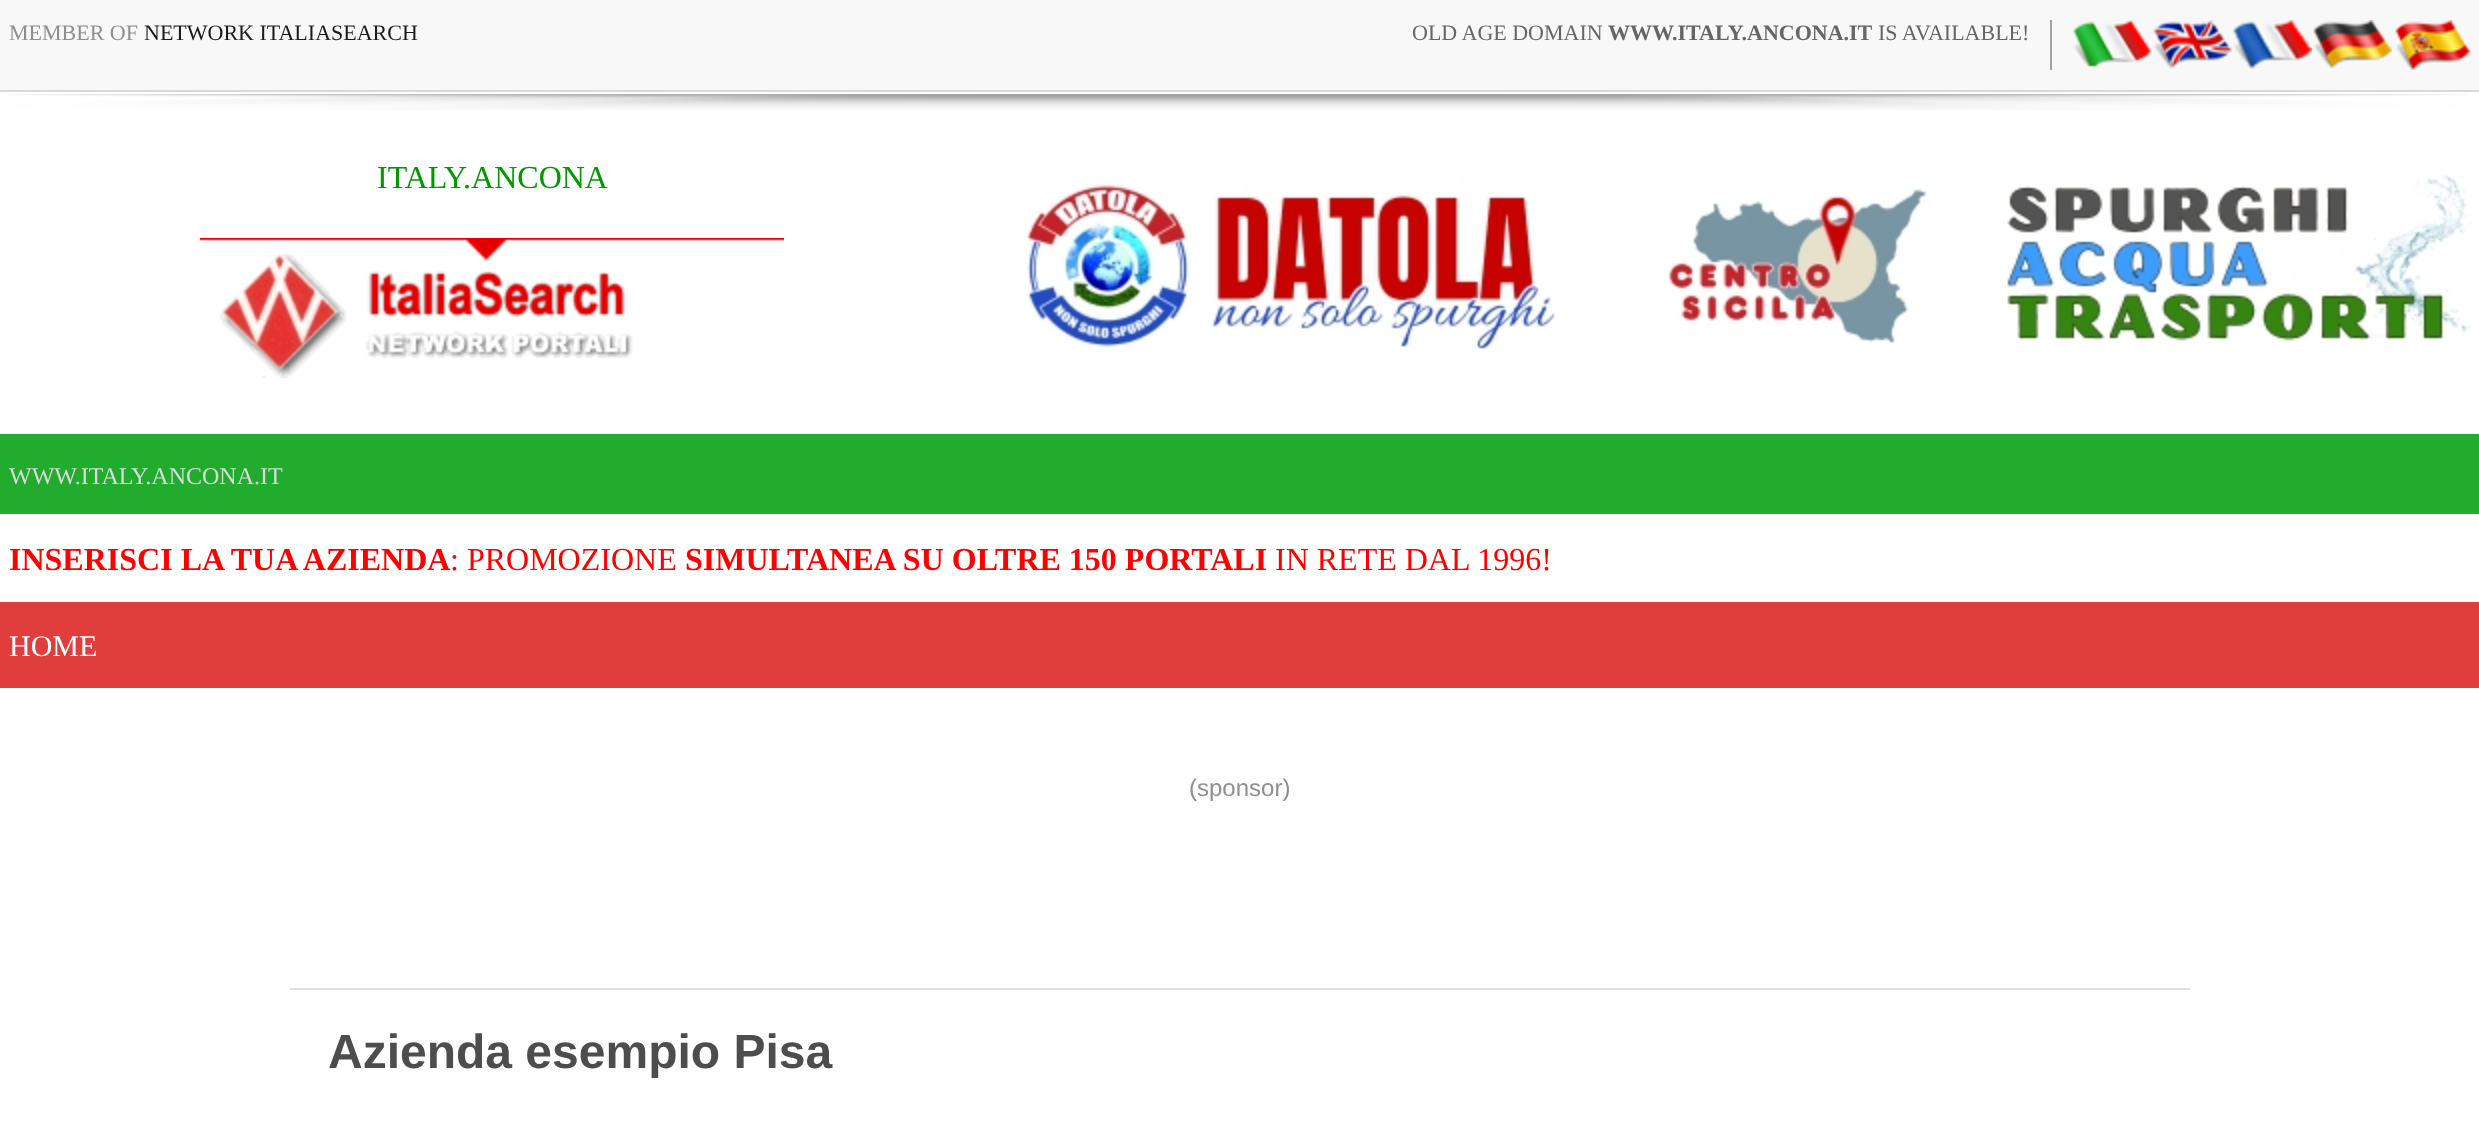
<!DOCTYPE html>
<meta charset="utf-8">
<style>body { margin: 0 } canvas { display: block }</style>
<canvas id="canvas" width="2479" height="1147"></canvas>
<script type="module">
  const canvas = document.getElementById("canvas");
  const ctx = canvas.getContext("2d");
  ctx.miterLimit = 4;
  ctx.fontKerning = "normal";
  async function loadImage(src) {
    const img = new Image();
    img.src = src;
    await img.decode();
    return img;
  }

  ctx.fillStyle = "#ffffff";
  ctx.fillRect(0, 0, 2479, 1147);
  ctx.fillStyle = "#f8f8f8";
  ctx.fillRect(0, 0, 2479, 90);
  ctx.fillStyle = "#d8d8d8";
  ctx.fillRect(0, 90, 2479, 2);
  ctx.font = "22px Liberation Serif";
  ctx.fillStyle = "#8f8f8f";
  ctx.fillText("MEMBER OF", 9, 40);
  ctx.fillStyle = "#1b1b1b";
  ctx.fillText("NETWORK ITALIASEARCH", 144, 40);
  ctx.fillStyle = "#666666";
  ctx.fillText("OLD AGE DOMAIN", 1412, 40);
  ctx.font = "bold 22px Liberation Serif";
  ctx.fillText("WWW.ITALY.ANCONA.IT", 1608, 40);
  ctx.font = "22px Liberation Serif";
  ctx.fillText("IS AVAILABLE!", 1878, 40);
  ctx.fillStyle = "#a3a3a3";
  ctx.fillRect(2050, 20, 2, 50);
  ctx.drawImage(await loadImage("img1.png"), 2073, 20, 79, 47);
  ctx.drawImage(await loadImage("img2.png"), 2153, 20, 79, 49);
  ctx.drawImage(await loadImage("img3.png"), 2233, 20, 79, 49);
  ctx.drawImage(await loadImage("img4.png"), 2313, 20, 79, 49);
  ctx.drawImage(await loadImage("img5.png"), 2395, 20, 76, 50);
  ctx.drawImage(await loadImage("img6.png"), 8, 94, 2460, 16);
  ctx.font = "32px Liberation Serif";
  ctx.fillStyle = "#009900";
  ctx.fillText("ITALY.ANCONA", 377, 188);
  ctx.drawImage(await loadImage("img7.png"), 200, 238, 584, 140);
  ctx.drawImage(await loadImage("img8.png"), 1026, 175, 1446, 176);
  ctx.fillStyle = "#21ac2d";
  ctx.fillRect(0, 434, 2479, 80);
  ctx.font = "24px Liberation Serif";
  ctx.fillStyle = "#dadada";
  ctx.fillText("WWW.ITALY.ANCONA.IT", 9, 484);
  ctx.font = "bold 32px Liberation Serif";
  ctx.fillStyle = "#ff0000";
  ctx.fillText("INSERISCI LA TUA AZIENDA", 9, 570);
  ctx.font = "32px Liberation Serif";
  ctx.fillText(": PROMOZIONE", 450, 570);
  ctx.font = "bold 32px Liberation Serif";
  ctx.fillText("SIMULTANEA SU OLTRE 150 PORTALI", 685, 570);
  ctx.font = "32px Liberation Serif";
  ctx.fillText("IN RETE DAL 1996!", 1275, 570);
  ctx.fillStyle = "#e03d3d";
  ctx.fillRect(0, 602, 2479, 86);
  ctx.font = "30px Liberation Serif";
  ctx.fillStyle = "#ffffff";
  ctx.fillText("HOME", 9, 656);
  ctx.font = "24px Liberation Sans";
  ctx.fillStyle = "#8f8f8f";
  ctx.fillText("(sponsor)", 1189, 796);
  ctx.fillStyle = "#e0e0e0";
  ctx.fillRect(290, 988, 1900, 2);
  ctx.font = "bold 48px Liberation Sans";
  ctx.fillStyle = "#4d4d4d";
  ctx.fillText("Azienda esempio Pisa", 328, 1068);
</script>
